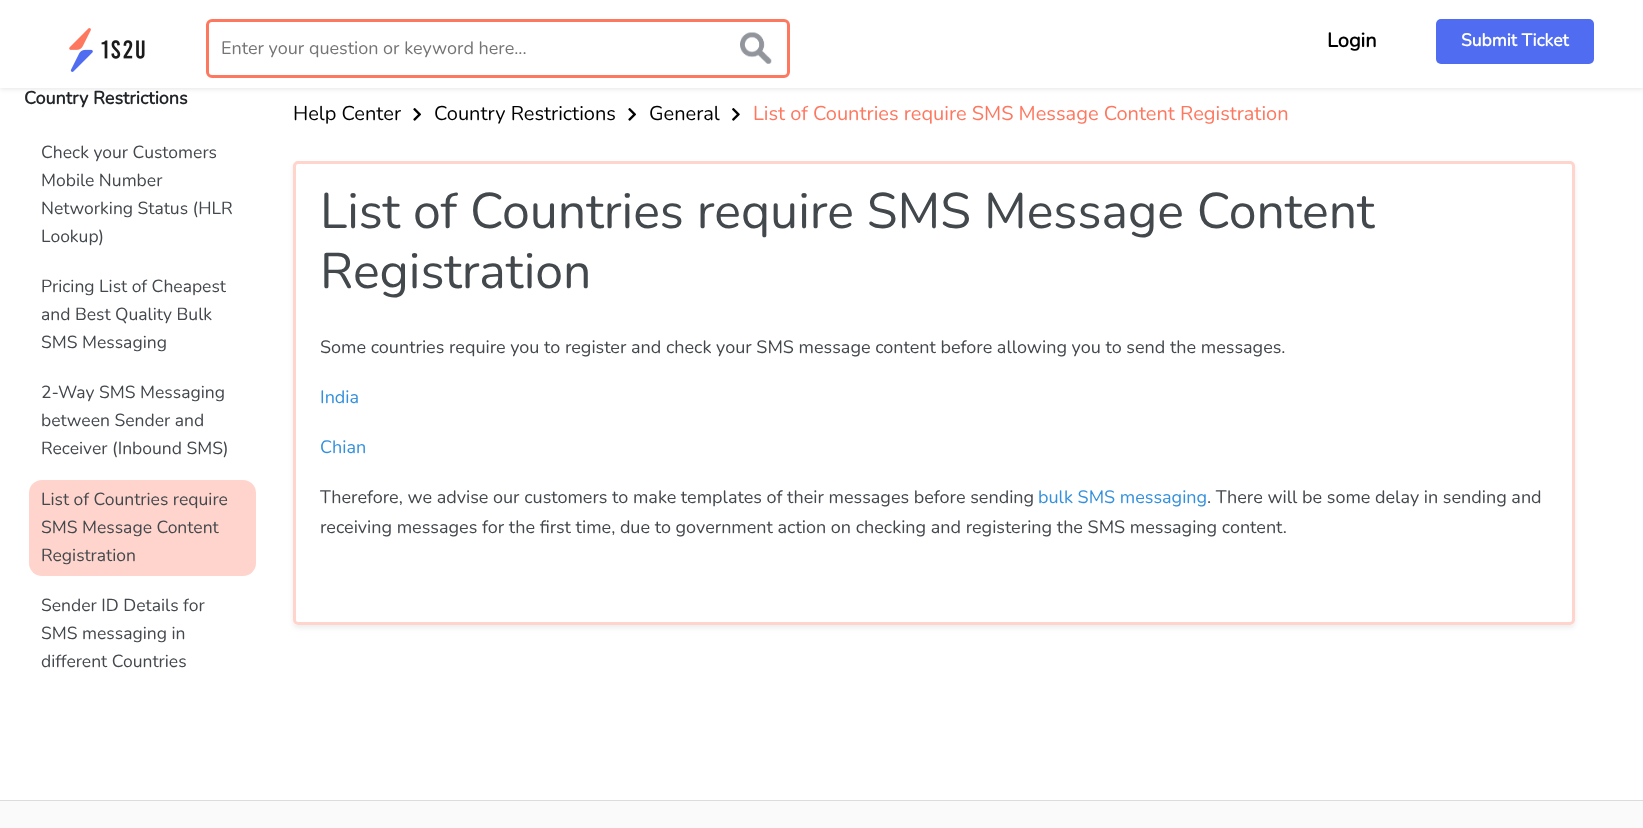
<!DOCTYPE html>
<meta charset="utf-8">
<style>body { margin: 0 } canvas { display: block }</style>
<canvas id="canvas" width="1643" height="828"></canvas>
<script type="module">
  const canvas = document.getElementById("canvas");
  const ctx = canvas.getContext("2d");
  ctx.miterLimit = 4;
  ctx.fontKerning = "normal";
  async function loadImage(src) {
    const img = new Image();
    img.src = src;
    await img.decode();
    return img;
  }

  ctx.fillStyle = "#ffffff";
  ctx.fillRect(0, 0, 1643, 828);
  ctx.fillStyle = "rgba(0, 0, 0, 0.1)";
  ctx.filter = "blur(2.5px)";
  ctx.beginPath();
  ctx.rect(0, 1, 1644, 88);
  ctx.fill();
  ctx.filter = "none";
  ctx.fillStyle = "#ffffff";
  ctx.fillRect(0, 0, 1643, 88);
  ctx.drawImage(await loadImage("img1.png"), 69, 28, 76, 44);
  ctx.drawImage(await loadImage("img2.png"), 740, 32, 32, 32);
  ctx.beginPath();
  ctx.roundRect(207.5, 20.5, 581, 56, 4.5);
  ctx.strokeStyle = "#fe7860";
  ctx.lineWidth = 3;
  ctx.stroke();
  ctx.font = "200 18px Nunito";
  ctx.fillStyle = "#757575";
  ctx.fillText("Enter your question or keyword here...", 221, 54);
  ctx.font = "bold 20px Nunito";
  ctx.fillStyle = "#000000";
  ctx.fillText("Login", 1327, 47);
  ctx.fillStyle = "#506cf0";
  ctx.beginPath();
  ctx.roundRect(1436, 19, 158, 45, 5);
  ctx.fill();
  ctx.font = "bold 17.5px Nunito";
  ctx.fillStyle = "#ffffff";
  ctx.fillText("Submit Ticket", 1461, 46);
  ctx.font = "bold 18px Nunito";
  ctx.fillStyle = "#212529";
  ctx.fillText("Country Restrictions", 24, 104);
  ctx.font = "200 17.5px Nunito";
  ctx.fillStyle = "#43484d";
  ctx.fillText("Check your Customers", 41, 158);
  ctx.fillText("Mobile Number", 41, 186);
  ctx.fillText("Networking Status (HLR", 41, 214);
  ctx.fillText("Lookup)", 41, 242);
  ctx.fillText("Pricing List of Cheapest", 41, 292);
  ctx.fillText("and Best Quality Bulk", 41, 320);
  ctx.fillText("SMS Messaging", 41, 348);
  ctx.fillText("2-Way SMS Messaging", 41, 398);
  ctx.fillText("between Sender and", 41, 426);
  ctx.fillText("Receiver (Inbound SMS)", 41, 454);
  ctx.fillStyle = "#ffd4cc";
  ctx.beginPath();
  ctx.roundRect(29, 480, 227, 96, 13);
  ctx.fill();
  ctx.fillStyle = "#43484d";
  ctx.fillText("List of Countries require", 41, 505);
  ctx.fillText("SMS Message Content", 41, 533);
  ctx.fillText("Registration", 41, 561);
  ctx.fillText("Sender ID Details for", 41, 611);
  ctx.fillText("SMS messaging in", 41, 639);
  ctx.fillText("different Countries", 41, 667);
  ctx.font = "200 20px Nunito";
  ctx.fillStyle = "#000000";
  ctx.fillText("Help Center", 293, 120);
  ctx.drawImage(await loadImage("img3.png"), 413, 108, 8, 13);
  ctx.fillText("Country Restrictions", 434, 120);
  ctx.drawImage(await loadImage("img3.png"), 628, 108, 8, 13);
  ctx.fillText("General", 649, 120);
  ctx.drawImage(await loadImage("img4.png"), 732, 108, 8, 13);
  ctx.fillStyle = "#fe7860";
  ctx.fillText("List of Countries require SMS Message Content Registration", 753, 120);
  ctx.save();
  ctx.beginPath();
  ctx.moveTo(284, 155);
  ctx.lineTo(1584, 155);
  ctx.lineTo(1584, 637);
  ctx.lineTo(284, 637);
  ctx.closePath();
  ctx.moveTo(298, 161);
  ctx.lineTo(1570, 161);
  ctx.bezierCurveTo(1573, 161, 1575, 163, 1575, 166);
  ctx.lineTo(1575, 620);
  ctx.bezierCurveTo(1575, 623, 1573, 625, 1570, 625);
  ctx.lineTo(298, 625);
  ctx.bezierCurveTo(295, 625, 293, 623, 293, 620);
  ctx.lineTo(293, 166);
  ctx.bezierCurveTo(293, 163, 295, 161, 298, 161);
  ctx.closePath();
  ctx.clip("evenodd");
  ctx.fillStyle = "rgba(0, 0, 0, 0.07)";
  ctx.filter = "blur(2.5px)";
  ctx.beginPath();
  ctx.roundRect(293, 164, 1282, 464, 5);
  ctx.fill();
  ctx.filter = "none";
  ctx.restore();
  ctx.beginPath();
  ctx.roundRect(294.5, 162.5, 1279, 461, 3.5);
  ctx.strokeStyle = "#ffd4cc";
  ctx.stroke();
  ctx.font = "200 50px Nunito";
  ctx.fillStyle = "#43484d";
  ctx.fillText("List of Countries require SMS Message Content", 320, 228);
  ctx.fillText("Registration", 320, 288);
  ctx.font = "200 18px Nunito";
  ctx.fillText("Some countries require you to register and check your SMS message content before allowing you to send the messages.", 320, 353);
  ctx.fillStyle = "#3490dc";
  ctx.fillText("India", 320, 403);
  ctx.fillText("Chian", 320, 453);
  ctx.fillStyle = "#43484d";
  ctx.fillText("Therefore, we advise our customers to make templates of their messages before sending", 320, 503);
  ctx.fillStyle = "#3490dc";
  ctx.fillText("bulk SMS messaging", 1038, 503);
  ctx.fillStyle = "#43484d";
  ctx.fillText(". There will be some delay in sending and", 1207, 503);
  ctx.fillText("receiving messages for the first time, due to government action on checking and registering the SMS messaging content.", 320, 533);
  ctx.fillStyle = "#fafafa";
  ctx.fillRect(0, 801, 1643, 27);
  ctx.fillStyle = "#dcdcdc";
  ctx.fillRect(0, 800, 1643, 1);
</script>
